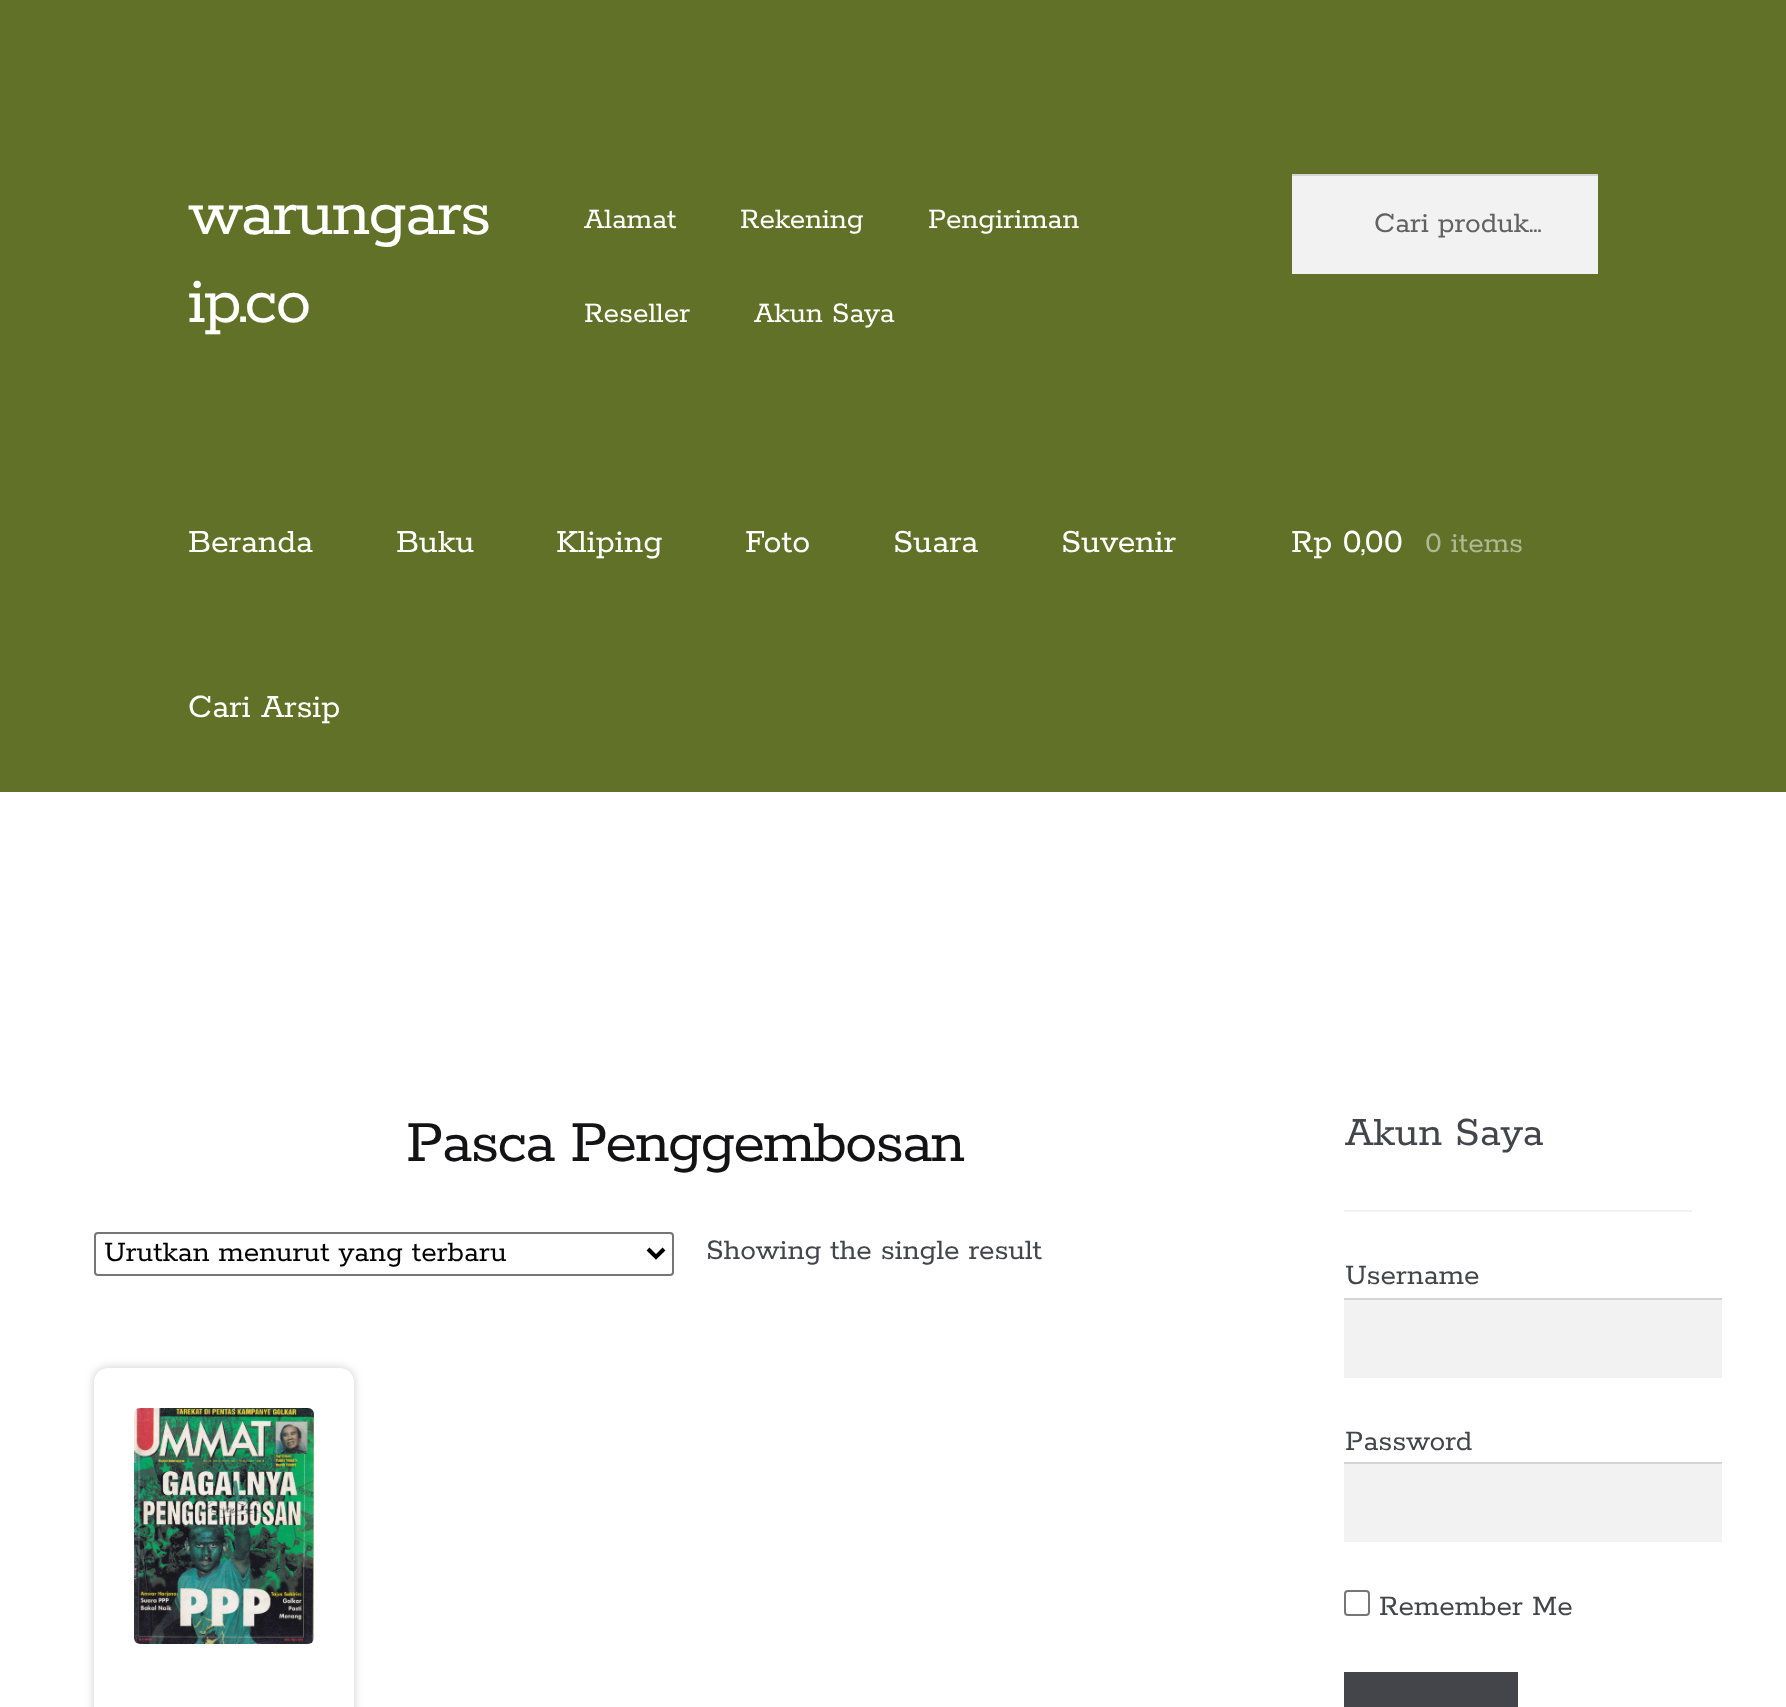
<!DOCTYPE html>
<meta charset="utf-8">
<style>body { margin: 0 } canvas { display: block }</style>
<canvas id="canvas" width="1786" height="1707"></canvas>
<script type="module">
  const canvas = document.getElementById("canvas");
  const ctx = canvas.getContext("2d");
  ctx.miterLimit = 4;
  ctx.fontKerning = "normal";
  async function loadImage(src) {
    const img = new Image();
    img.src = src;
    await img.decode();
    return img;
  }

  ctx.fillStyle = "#ffffff";
  ctx.fillRect(0, 0, 1786, 1707);
  ctx.fillStyle = "#617228";
  ctx.fillRect(0, 0, 1786, 792);
  ctx.letterSpacing = "-2px";
  ctx.font = "600 72px Rokkitt";
  ctx.fillStyle = "#ffffff";
  ctx.fillText("warungars", 188, 234);
  ctx.fillText("ip.co", 188, 322);
  ctx.letterSpacing = "0px";
  ctx.font = "600 31.5px Rokkitt";
  ctx.fillText("Alamat", 584, 228);
  ctx.fillText("Rekening", 740, 228);
  ctx.fillText("Pengiriman", 928, 228);
  ctx.fillText("Reseller", 584, 322);
  ctx.fillText("Akun Saya", 754, 322);
  ctx.fillStyle = "#f2f2f2";
  ctx.fillRect(1292, 176, 306, 98);
  ctx.fillStyle = "#d4d4d4";
  ctx.fillRect(1292, 174, 306, 2);
  ctx.fillStyle = "#616161";
  ctx.fillText("Cari produk…", 1374, 232);
  ctx.font = "600 36px Rokkitt";
  ctx.fillStyle = "#ffffff";
  ctx.fillText("Beranda", 188, 552);
  ctx.fillText("Buku", 396, 552);
  ctx.fillText("Kliping", 556, 552);
  ctx.fillText("Foto", 745, 552);
  ctx.fillText("Suara", 893, 552);
  ctx.fillText("Suvenir", 1061, 552);
  ctx.fillText("Cari Arsip", 188, 717);
  ctx.fillText("Rp 0,00", 1291, 552);
  ctx.font = "600 31.5px Rokkitt";
  ctx.fillStyle = "#b0b994";
  ctx.fillText("0 items", 1425, 552);
  ctx.letterSpacing = "-2px";
  ctx.font = "600 64.75px Rokkitt";
  ctx.fillStyle = "#131315";
  ctx.fillText("Pasca Penggembosan", 406, 1161);
  ctx.beginPath();
  ctx.roundRect(95, 1233, 578, 42, 3);
  ctx.strokeStyle = "#767676";
  ctx.lineWidth = 2;
  ctx.stroke();
  ctx.beginPath();
  ctx.moveTo(648, 1249);
  ctx.lineTo(656, 1257);
  ctx.lineTo(664, 1249);
  ctx.strokeStyle = "#000000";
  ctx.lineWidth = 4;
  ctx.stroke();
  ctx.letterSpacing = "0px";
  ctx.font = "600 31.5px Rokkitt";
  ctx.fillStyle = "#000000";
  ctx.fillText("Urutkan menurut yang terbaru", 104, 1261);
  ctx.fillStyle = "#43454b";
  ctx.fillText("Showing the single result", 706, 1259);
  ctx.save();
  ctx.beginPath();
  ctx.moveTo(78, 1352);
  ctx.lineTo(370, 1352);
  ctx.lineTo(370, 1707);
  ctx.lineTo(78, 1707);
  ctx.closePath();
  ctx.moveTo(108, 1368);
  ctx.lineTo(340, 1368);
  ctx.bezierCurveTo(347.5, 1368, 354, 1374.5, 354, 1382);
  ctx.lineTo(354, 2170);
  ctx.bezierCurveTo(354, 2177.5, 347.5, 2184, 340, 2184);
  ctx.lineTo(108, 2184);
  ctx.bezierCurveTo(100.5, 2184, 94, 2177.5, 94, 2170);
  ctx.lineTo(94, 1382);
  ctx.bezierCurveTo(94, 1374.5, 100.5, 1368, 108, 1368);
  ctx.closePath();
  ctx.clip("evenodd");
  ctx.fillStyle = "rgba(0, 0, 0, 0.2)";
  ctx.filter = "blur(5px)";
  ctx.beginPath();
  ctx.roundRect(94, 1368, 260, 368, 14);
  ctx.fill();
  ctx.filter = "none";
  ctx.restore();
  ctx.drawImage(await loadImage("img1.png"), 134, 1408, 180, 236);
  ctx.fillStyle = "#f2f2f2";
  ctx.fillRect(1344, 1210, 348, 2);
  ctx.font = "600 44.5px Rokkitt";
  ctx.fillStyle = "#43454b";
  ctx.fillText("Akun Saya", 1345, 1145);
  ctx.font = "600 31.5px Rokkitt";
  ctx.fillText("Username", 1345, 1284);
  ctx.fillStyle = "#f2f2f2";
  ctx.fillRect(1344, 1300, 378, 78);
  ctx.fillStyle = "#d4d4d4";
  ctx.fillRect(1344, 1298, 378, 2);
  ctx.fillStyle = "#43454b";
  ctx.fillText("Password", 1345, 1450);
  ctx.fillStyle = "#f2f2f2";
  ctx.fillRect(1344, 1464, 378, 78);
  ctx.fillStyle = "#d4d4d4";
  ctx.fillRect(1344, 1462, 378, 2);
  ctx.beginPath();
  ctx.roundRect(1345, 1591, 24, 24, 3);
  ctx.strokeStyle = "#767676";
  ctx.lineWidth = 2;
  ctx.stroke();
  ctx.fillStyle = "#43454b";
  ctx.fillText("Remember Me", 1379, 1615);
  ctx.fillRect(1344, 1672, 174, 35);
</script>
